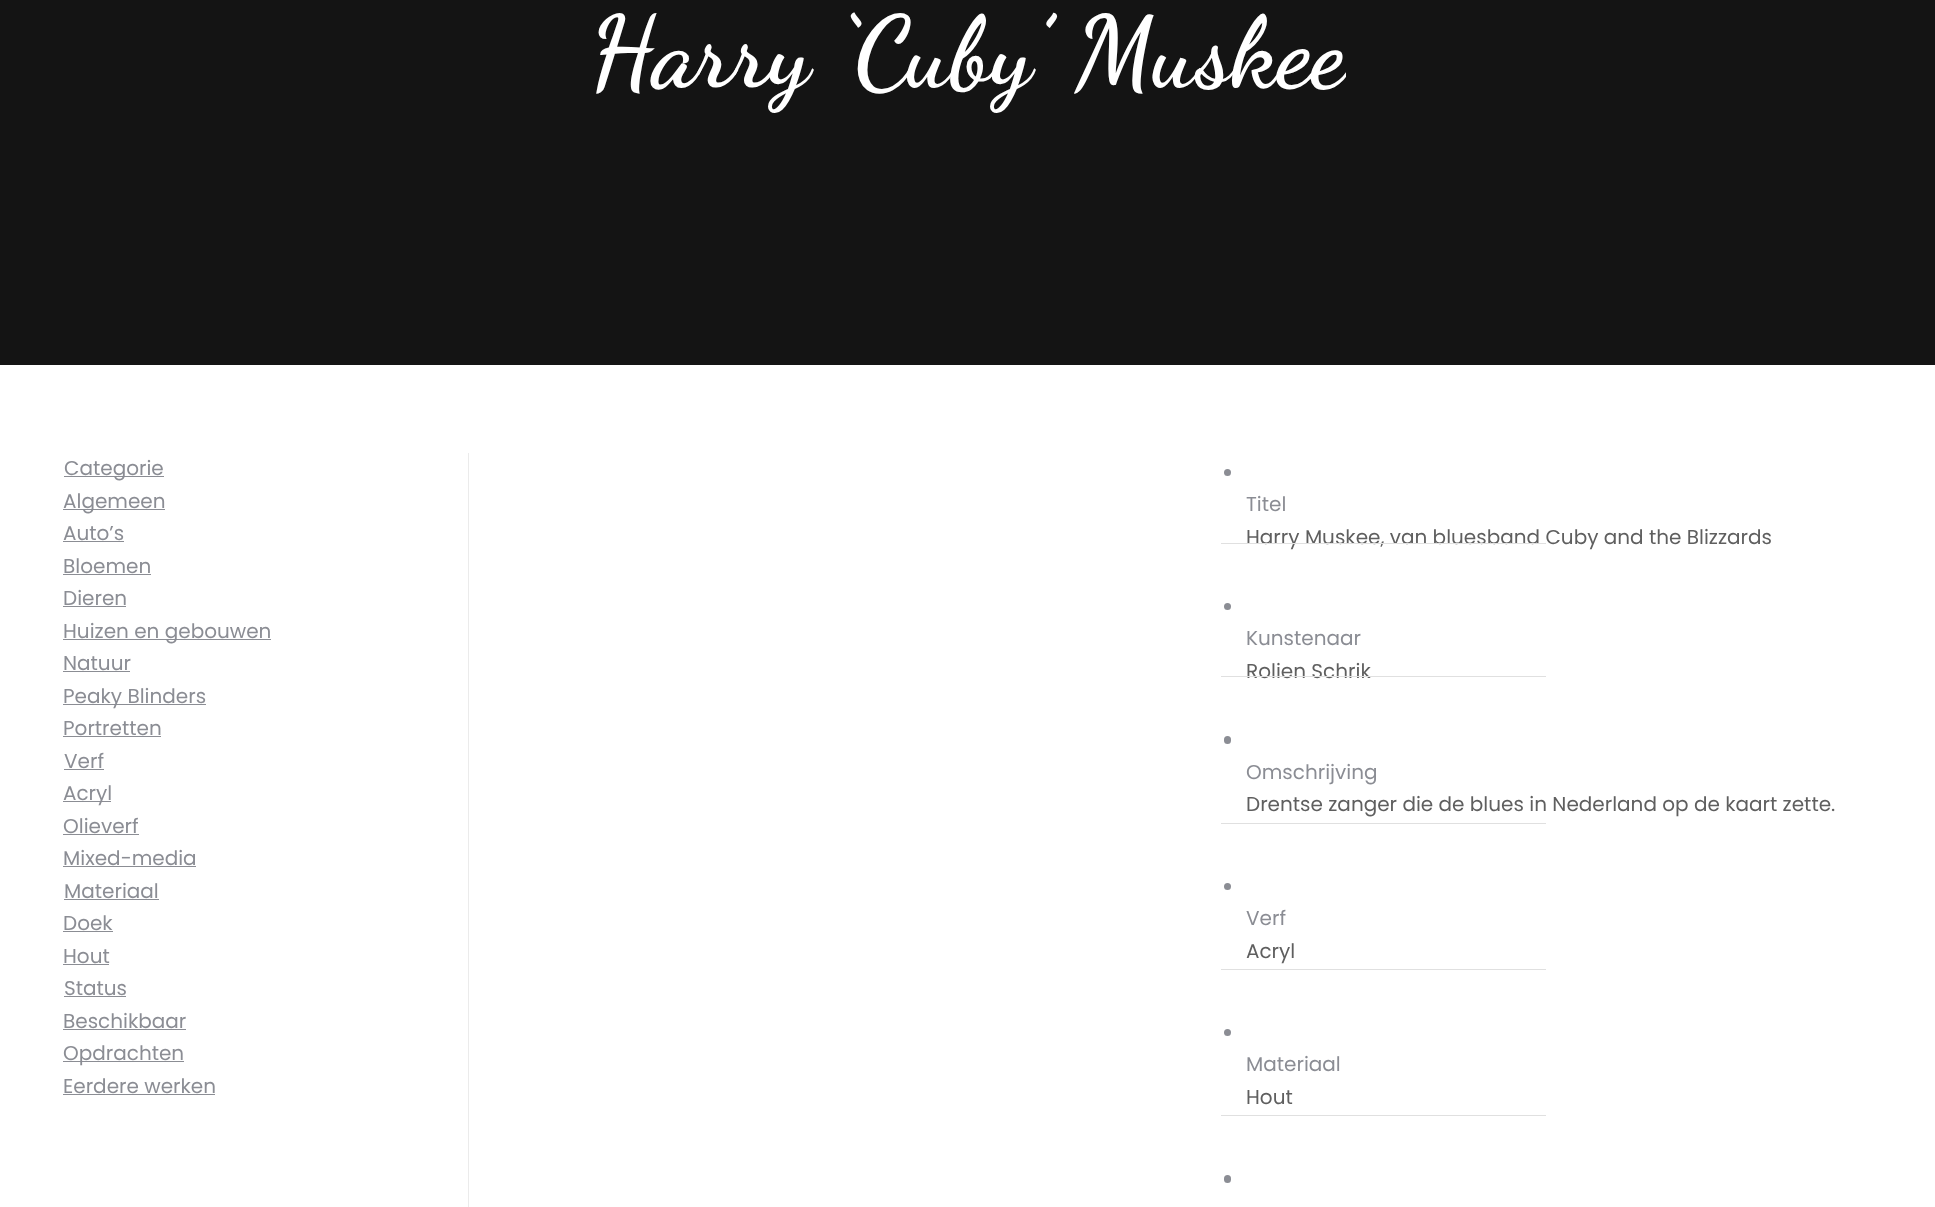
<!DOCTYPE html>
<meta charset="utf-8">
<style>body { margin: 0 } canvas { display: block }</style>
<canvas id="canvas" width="1935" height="1207"></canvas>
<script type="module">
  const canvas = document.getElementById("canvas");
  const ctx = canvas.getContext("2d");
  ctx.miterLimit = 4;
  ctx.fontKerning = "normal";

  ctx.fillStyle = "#ffffff";
  ctx.fillRect(0, 0, 1935, 1207);
  ctx.fillStyle = "#141414";
  ctx.fillRect(0, 0, 1935, 365);
  ctx.save();
  ctx.beginPath();
  ctx.rect(589, 0, 757, 128);
  ctx.clip();
  ctx.font = "bold 100px Dancing Script";
  ctx.fillStyle = "#ffffff";
  ctx.fillText("Harry ‘Cuby’ Muskee", 589, 85);
  ctx.restore();
  ctx.fillStyle = "#ebebeb";
  ctx.fillRect(468, 453, 1, 754);
  ctx.fillStyle = "#8b8d94";
  ctx.fillRect(64, 476, 100, 1);
  ctx.font = "20px Poppins";
  ctx.fillText("Categorie", 64, 475);
  ctx.fillRect(63, 509, 102, 1);
  ctx.fillText("Algemeen", 63, 508);
  ctx.fillText("Auto’s", 63, 540);
  ctx.fillRect(63, 541, 61, 1);
  ctx.fillText("Bloemen", 63, 573);
  ctx.fillRect(63, 574, 88, 1);
  ctx.fillText("Dieren", 63, 605);
  ctx.fillRect(63, 606, 63, 1);
  ctx.fillRect(63, 639, 208, 1);
  ctx.fillText("Huizen en gebouwen", 63, 638);
  ctx.fillText("Natuur", 63, 670);
  ctx.fillRect(63, 671, 67, 1);
  ctx.fillRect(63, 704, 143, 1);
  ctx.fillText("Peaky Blinders", 63, 703);
  ctx.fillText("Portretten", 63, 735);
  ctx.fillRect(63, 736, 98, 1);
  ctx.fillText("Verf", 64, 768);
  ctx.fillRect(64, 769, 40, 1);
  ctx.fillRect(63, 801, 48, 1);
  ctx.fillText("Acryl", 63, 800);
  ctx.fillText("Olieverf", 63, 833);
  ctx.fillRect(63, 834, 76, 1);
  ctx.fillText("Mixed-media", 63, 865);
  ctx.fillRect(63, 866, 133, 1);
  ctx.fillText("Materiaal", 64, 898);
  ctx.fillRect(64, 899, 95, 1);
  ctx.fillText("Doek", 63, 930);
  ctx.fillRect(63, 931, 50, 1);
  ctx.fillText("Hout", 63, 963);
  ctx.fillRect(63, 964, 46, 1);
  ctx.fillText("Status", 64, 995);
  ctx.fillRect(64, 996, 62, 1);
  ctx.fillText("Beschikbaar", 63, 1028);
  ctx.fillRect(63, 1029, 123, 1);
  ctx.fillRect(63, 1061, 121, 1);
  ctx.fillText("Opdrachten", 63, 1060);
  ctx.fillText("Eerdere werken", 63, 1093);
  ctx.fillRect(63, 1094, 152, 1);
  ctx.beginPath();
  ctx.arc(1227.5, 472.5, 3.5, 0, Math.PI * 2);
  ctx.fill();
  ctx.fillText("Titel", 1246, 511);
  ctx.fillStyle = "#5f5f5f";
  ctx.fillText("Harry Muskee, van bluesband Cuby and the Blizzards", 1246, 544);
  ctx.fillStyle = "#e0e0e0";
  ctx.fillRect(1221, 543, 325, 1);
  ctx.fillStyle = "#8b8d94";
  ctx.beginPath();
  ctx.arc(1227.5, 606.5, 3.5, 0, Math.PI * 2);
  ctx.fill();
  ctx.fillText("Kunstenaar", 1246, 645);
  ctx.fillStyle = "#5f5f5f";
  ctx.fillText("Rolien Schrik", 1246, 678);
  ctx.fillStyle = "#e0e0e0";
  ctx.fillRect(1221, 676, 325, 1);
  ctx.fillStyle = "#8b8d94";
  ctx.beginPath();
  ctx.roundRect(1224, 736, 7, 8, 3.5);
  ctx.fill();
  ctx.fillText("Omschrijving", 1246, 779);
  ctx.fillStyle = "#5f5f5f";
  ctx.fillText("Drentse zanger die de blues in Nederland op de kaart zette.", 1246, 811);
  ctx.fillStyle = "#e0e0e0";
  ctx.fillRect(1221, 823, 325, 1);
  ctx.fillStyle = "#8b8d94";
  ctx.beginPath();
  ctx.arc(1227.5, 886.5, 3.5, 0, Math.PI * 2);
  ctx.fill();
  ctx.fillText("Verf", 1246, 925);
  ctx.fillStyle = "#5f5f5f";
  ctx.fillText("Acryl", 1246, 958);
  ctx.fillStyle = "#e0e0e0";
  ctx.fillRect(1221, 969, 325, 1);
  ctx.fillStyle = "#8b8d94";
  ctx.beginPath();
  ctx.arc(1227.5, 1032.5, 3.5, 0, Math.PI * 2);
  ctx.fill();
  ctx.fillText("Materiaal", 1246, 1071);
  ctx.fillStyle = "#5f5f5f";
  ctx.fillText("Hout", 1246, 1104);
  ctx.fillStyle = "#e0e0e0";
  ctx.fillRect(1221, 1115, 325, 1);
  ctx.fillStyle = "#8b8d94";
  ctx.beginPath();
  ctx.roundRect(1224, 1175, 7, 8, 3.5);
  ctx.fill();
</script>
